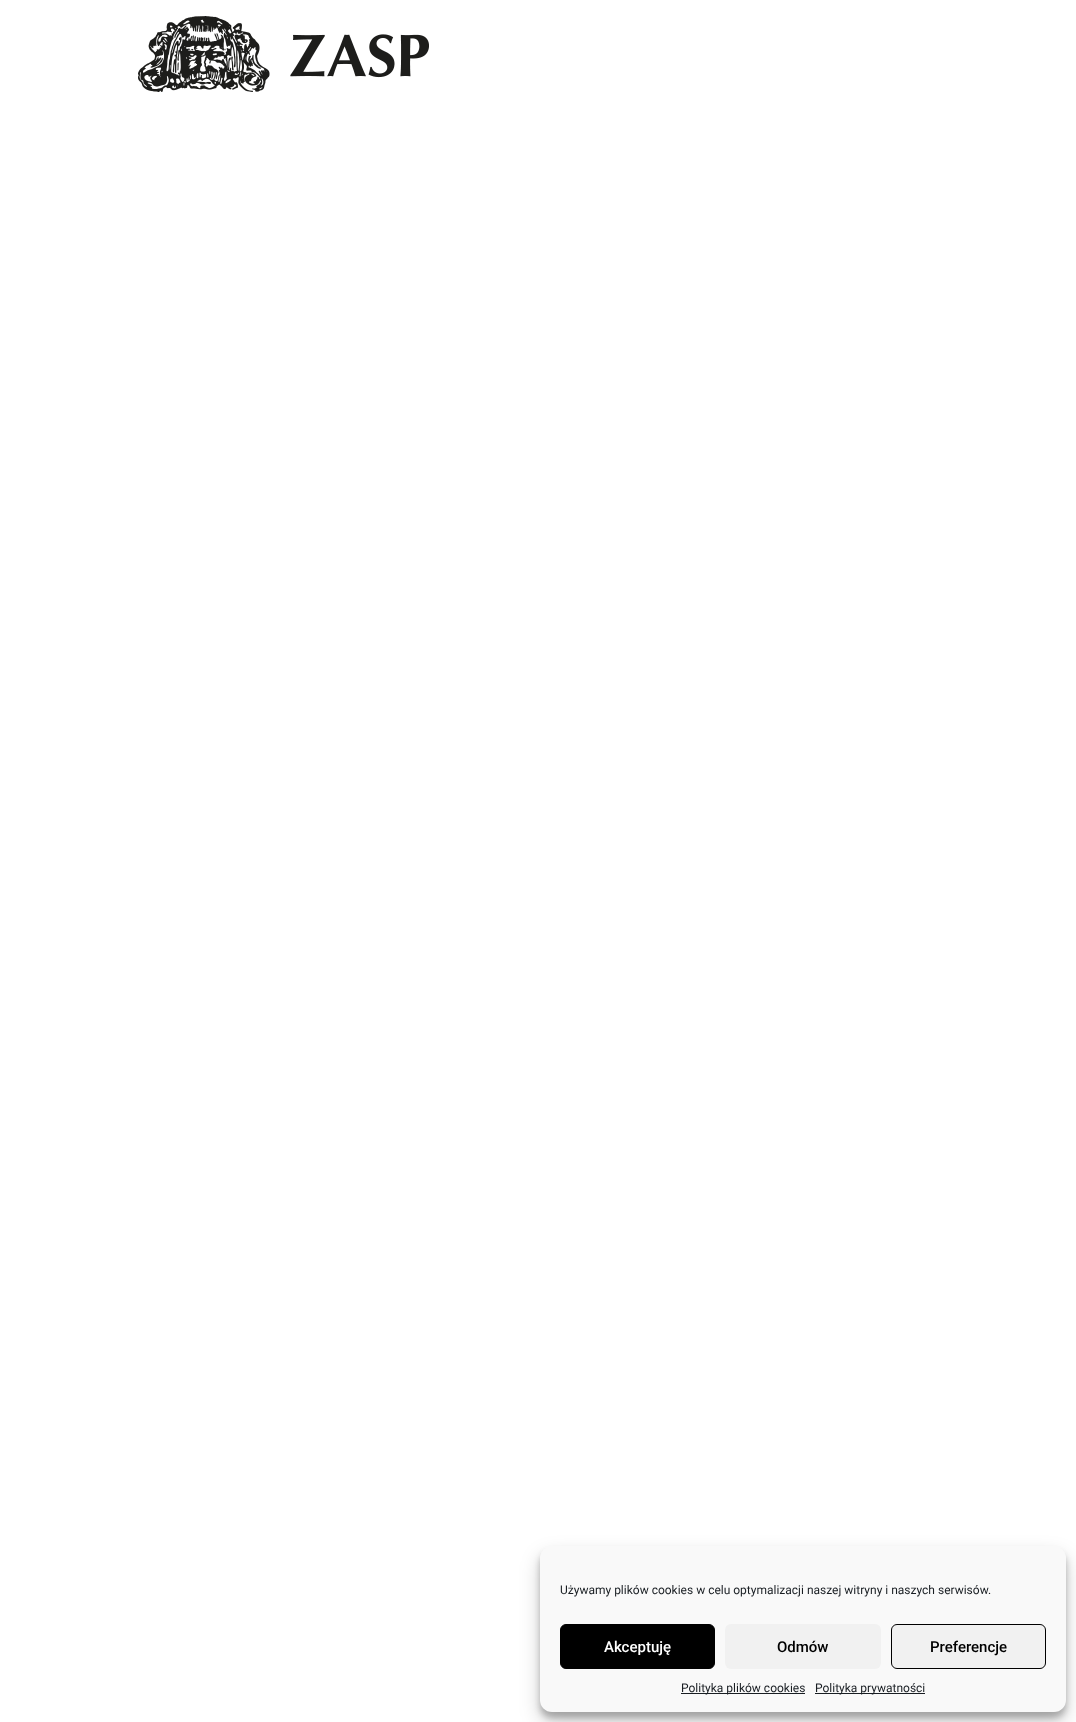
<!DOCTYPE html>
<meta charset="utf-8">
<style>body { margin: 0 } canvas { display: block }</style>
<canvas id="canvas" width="1076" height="1722"></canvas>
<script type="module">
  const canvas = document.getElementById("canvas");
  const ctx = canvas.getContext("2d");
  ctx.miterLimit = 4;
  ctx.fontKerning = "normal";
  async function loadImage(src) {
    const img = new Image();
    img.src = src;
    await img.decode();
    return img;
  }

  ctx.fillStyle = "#ffffff";
  ctx.fillRect(0, 0, 1076, 1722);
  ctx.drawImage(await loadImage("img1.png"), 138, 16, 291, 76);
  ctx.fillStyle = "rgba(0, 0, 0, 0.23)";
  ctx.filter = "blur(3px)";
  ctx.beginPath();
  ctx.roundRect(540, 1552, 526, 166, 12);
  ctx.fill();
  ctx.filter = "none";
  ctx.fillStyle = "rgba(0, 0, 0, 0.19)";
  ctx.filter = "blur(10px)";
  ctx.beginPath();
  ctx.roundRect(540, 1556, 526, 166, 12);
  ctx.fill();
  ctx.filter = "none";
  ctx.fillStyle = "#f9f9f9";
  ctx.beginPath();
  ctx.roundRect(540, 1546, 526, 166, 12);
  ctx.fill();
  ctx.font = "12px Roboto";
  ctx.fillStyle = "#191e23";
  ctx.fillText("Używamy plików cookies w celu optymalizacji naszej witryny i naszych serwisów.", 560, 1594);
  ctx.fillStyle = "#000000";
  ctx.beginPath();
  ctx.roundRect(560.5, 1624.5, 154, 44, 5.5);
  ctx.fill();
  ctx.strokeStyle = "#000000";
  ctx.stroke();
  ctx.font = "500 15px Roboto";
  ctx.fillStyle = "#ffffff";
  ctx.fillText("Akceptuję", 604, 1652);
  ctx.fillStyle = "#f1f1f1";
  ctx.beginPath();
  ctx.roundRect(725, 1624, 156, 45, 6);
  ctx.fill();
  ctx.fillStyle = "#000000";
  ctx.fillText("Odmów", 777, 1652);
  ctx.fillStyle = "#f1f1f1";
  ctx.beginPath();
  ctx.roundRect(891.5, 1624.5, 154, 44, 5.5);
  ctx.fill();
  ctx.stroke();
  ctx.fillStyle = "#000000";
  ctx.fillText("Preferencje", 930, 1652);
  ctx.fillStyle = "#191e23";
  ctx.fillRect(681, 1693, 124, 1);
  ctx.font = "12px Roboto";
  ctx.fillText("Polityka plików cookies", 681, 1692);
  ctx.fillRect(815, 1693, 110, 1);
  ctx.fillText("Polityka prywatności", 815, 1692);
</script>
